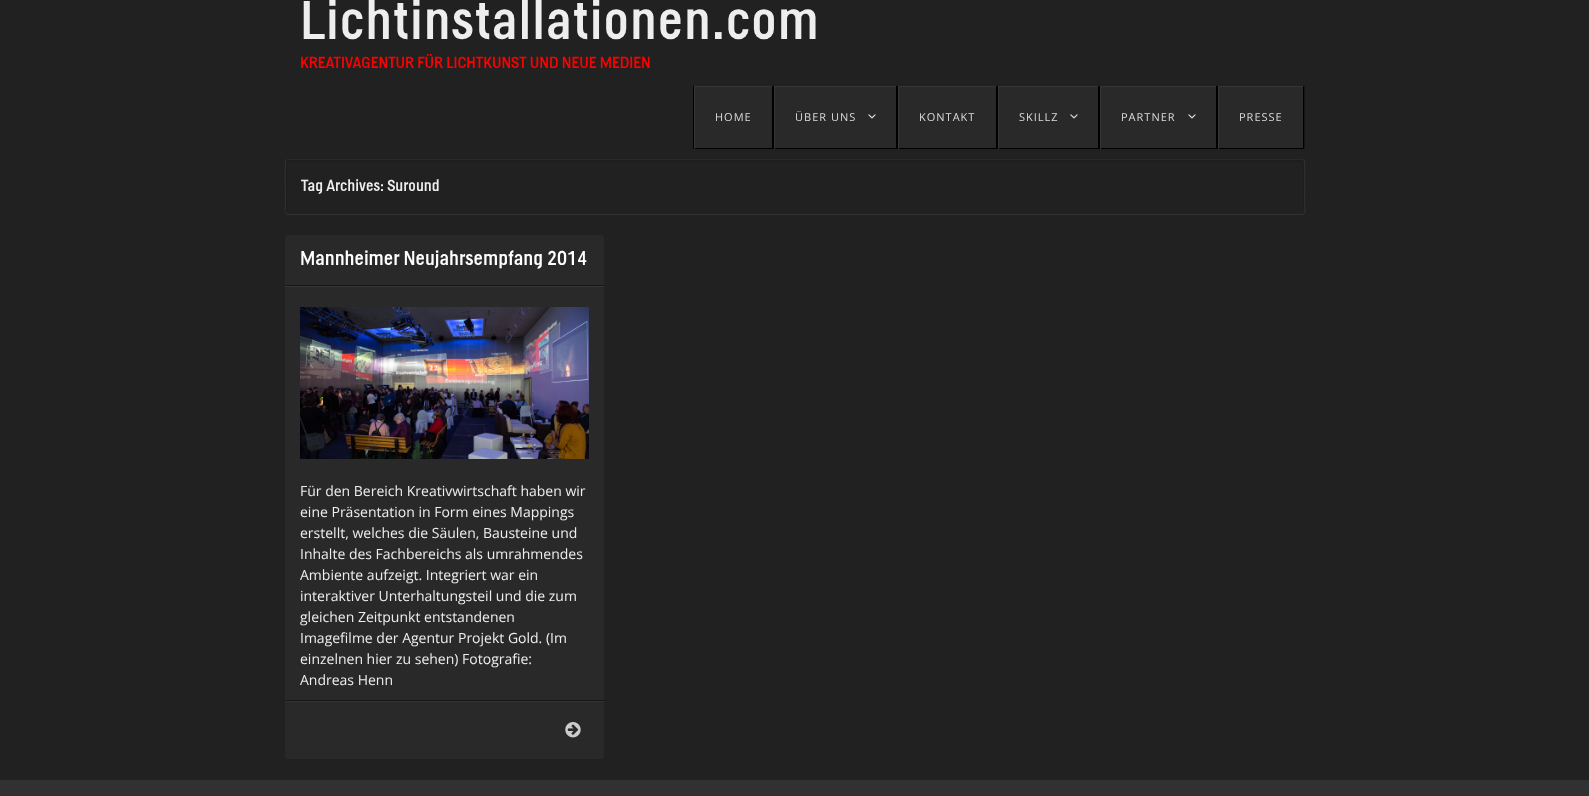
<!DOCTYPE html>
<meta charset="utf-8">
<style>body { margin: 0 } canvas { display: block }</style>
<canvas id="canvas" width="1589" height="796"></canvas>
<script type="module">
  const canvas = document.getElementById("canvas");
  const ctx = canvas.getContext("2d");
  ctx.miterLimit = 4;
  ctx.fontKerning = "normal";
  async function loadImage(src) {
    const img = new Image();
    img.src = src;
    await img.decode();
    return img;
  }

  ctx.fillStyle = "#212121";
  ctx.fillRect(0, 0, 1589, 796);
  ctx.letterSpacing = "1px";
  ctx.font = "54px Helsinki";
  ctx.fillStyle = "#eeeeee";
  ctx.fillText("Lichtinstallationen.com", 300, 39);
  ctx.letterSpacing = "0px";
  ctx.font = "16px Helsinki";
  ctx.fillStyle = "#ff0000";
  ctx.fillText("KREATIVAGENTUR FÜR LICHTKUNST UND NEUE MEDIEN", 300, 68);
  ctx.fillStyle = "#161616";
  ctx.fillRect(1304, 86, 1, 63);
  ctx.fillStyle = "#000000";
  ctx.fillRect(693, 86, 1, 63);
  ctx.fillStyle = "#292929";
  ctx.fillRect(695, 87, 77, 61);
  ctx.fillStyle = "#363636";
  ctx.fillRect(694, 86, 79, 1);
  ctx.fillStyle = "#000000";
  ctx.fillRect(772, 86, 2, 63);
  ctx.fillRect(694, 148, 79, 1);
  ctx.fillStyle = "#363636";
  ctx.fillRect(694, 86, 1, 63);
  ctx.letterSpacing = "1px";
  ctx.font = "11px Open Sans";
  ctx.fillStyle = "#dddddd";
  ctx.fillText("HOME", 715, 121);
  ctx.fillStyle = "#292929";
  ctx.fillRect(775, 87, 121, 61);
  ctx.fillStyle = "#363636";
  ctx.fillRect(774, 86, 123, 1);
  ctx.fillStyle = "#000000";
  ctx.fillRect(896, 86, 2, 63);
  ctx.fillRect(774, 148, 123, 1);
  ctx.fillStyle = "#363636";
  ctx.fillRect(774, 86, 1, 63);
  ctx.fillStyle = "#dddddd";
  ctx.fillText("ÜBER UNS", 795, 121);
  ctx.drawImage(await loadImage("img1.png"), 868, 114, 8, 5);
  ctx.fillStyle = "#292929";
  ctx.fillRect(899, 87, 97, 61);
  ctx.fillStyle = "#363636";
  ctx.fillRect(898, 86, 99, 1);
  ctx.fillStyle = "#000000";
  ctx.fillRect(996, 86, 2, 63);
  ctx.fillRect(898, 148, 99, 1);
  ctx.fillStyle = "#363636";
  ctx.fillRect(898, 86, 1, 63);
  ctx.fillStyle = "#dddddd";
  ctx.fillText("KONTAKT", 919, 121);
  ctx.fillStyle = "#292929";
  ctx.fillRect(999, 87, 99, 61);
  ctx.fillStyle = "#363636";
  ctx.fillRect(998, 86, 101, 1);
  ctx.fillStyle = "#000000";
  ctx.fillRect(1098, 86, 2, 63);
  ctx.fillRect(998, 148, 101, 1);
  ctx.fillStyle = "#363636";
  ctx.fillRect(998, 86, 1, 63);
  ctx.fillStyle = "#dddddd";
  ctx.fillText("SKILLZ", 1019, 121);
  ctx.drawImage(await loadImage("img1.png"), 1070, 114, 8, 5);
  ctx.fillStyle = "#292929";
  ctx.fillRect(1101, 87, 115, 61);
  ctx.fillStyle = "#363636";
  ctx.fillRect(1100, 86, 117, 1);
  ctx.fillStyle = "#000000";
  ctx.fillRect(1216, 86, 2, 63);
  ctx.fillRect(1100, 148, 117, 1);
  ctx.fillStyle = "#363636";
  ctx.fillRect(1100, 86, 1, 63);
  ctx.fillStyle = "#dddddd";
  ctx.fillText("PARTNER", 1121, 121);
  ctx.drawImage(await loadImage("img1.png"), 1188, 114, 8, 5);
  ctx.fillStyle = "#292929";
  ctx.fillRect(1219, 87, 84, 61);
  ctx.fillStyle = "#363636";
  ctx.fillRect(1218, 86, 86, 1);
  ctx.fillStyle = "#000000";
  ctx.fillRect(1303, 86, 1, 63);
  ctx.fillRect(1218, 148, 86, 1);
  ctx.fillStyle = "#363636";
  ctx.fillRect(1218, 86, 1, 63);
  ctx.fillStyle = "#dddddd";
  ctx.fillText("PRESSE", 1239, 121);
  ctx.fillStyle = "#1e1e1e";
  ctx.beginPath();
  ctx.moveTo(288, 162);
  ctx.lineTo(1302, 162);
  ctx.lineTo(1303, 163);
  ctx.lineTo(1303, 205);
  ctx.bezierCurveTo(1303, 205, 1305, 214, 1302, 214);
  ctx.bezierCurveTo(1303, 214, 1304, 213, 1304, 212);
  ctx.lineTo(1304, 162);
  ctx.bezierCurveTo(1304, 161, 1303, 160, 1302, 160);
  ctx.lineTo(288, 160);
  ctx.bezierCurveTo(287, 160, 286, 161, 286, 162);
  ctx.lineTo(286, 212);
  ctx.bezierCurveTo(286, 213, 286, 213, 287, 214);
  ctx.lineTo(287, 171);
  ctx.bezierCurveTo(287, 171, 285, 162, 288, 162);
  ctx.closePath();
  ctx.fill();
  ctx.beginPath();
  ctx.moveTo(286, 160);
  ctx.lineTo(288, 159.5);
  ctx.lineTo(1302, 159.5);
  ctx.lineTo(1304, 160);
  ctx.strokeStyle = "#292929";
  ctx.stroke();
  ctx.beginPath();
  ctx.moveTo(1304, 160);
  ctx.bezierCurveTo(1305.5, 162, 1304.5, 198.5, 1304.5, 203.5);
  ctx.bezierCurveTo(1304.5, 204, 1306.5, 214.5, 1302, 214.5);
  ctx.lineTo(288, 214.5);
  ctx.bezierCurveTo(283.5, 214.5, 285.5, 204, 285.5, 203.5);
  ctx.bezierCurveTo(285.5, 198.5, 284.5, 162, 286, 160);
  ctx.strokeStyle = "#333333";
  ctx.stroke();
  ctx.letterSpacing = "0px";
  ctx.font = "16px Helsinki";
  ctx.fillStyle = "#eeeeee";
  ctx.fillText("Tag Archives: Suround", 301, 191);
  ctx.fillStyle = "#292929";
  ctx.beginPath();
  ctx.roundRect(285, 235, 319, 524, 3);
  ctx.fill();
  ctx.fillStyle = "#161616";
  ctx.fillRect(285, 285, 319, 1);
  ctx.font = "20px Helsinki";
  ctx.fillStyle = "#ffffff";
  ctx.fillText("Mannheimer Neujahrsempfang 2014", 300, 265);
  ctx.fillStyle = "#363636";
  ctx.fillRect(285, 286, 319, 1);
  ctx.fillStyle = "#161616";
  ctx.fillRect(285, 700, 319, 1);
  ctx.drawImage(await loadImage("img2.png"), 300, 307, 289, 152);
  ctx.font = "14px Open Sans";
  ctx.fillStyle = "#eeeeee";
  ctx.fillText("Für den Bereich Kreativwirtschaft haben wir", 300, 496);
  ctx.fillText("eine Präsentation in Form eines Mappings", 300, 517);
  ctx.fillText("erstellt, welches die Säulen, Bausteine und", 300, 538);
  ctx.fillText("Inhalte des Fachbereichs als umrahmendes", 300, 559);
  ctx.fillText("Ambiente aufzeigt. Integriert war ein", 300, 580);
  ctx.fillText("interaktiver Unterhaltungsteil und die zum", 300, 601);
  ctx.fillText("gleichen Zeitpunkt entstandenen", 300, 622);
  ctx.fillText("Imagefilme der Agentur Projekt Gold. (Im", 300, 643);
  ctx.fillText("einzelnen hier zu sehen) Fotografie:", 300, 664);
  ctx.fillText("Andreas Henn", 300, 685);
  ctx.fillStyle = "#333333";
  ctx.fillRect(285, 701, 319, 1);
  ctx.drawImage(await loadImage("img3.png"), 565, 722, 16, 16);
  ctx.fillStyle = "#313131";
  ctx.fillRect(0, 780, 1589, 16);
</script>
